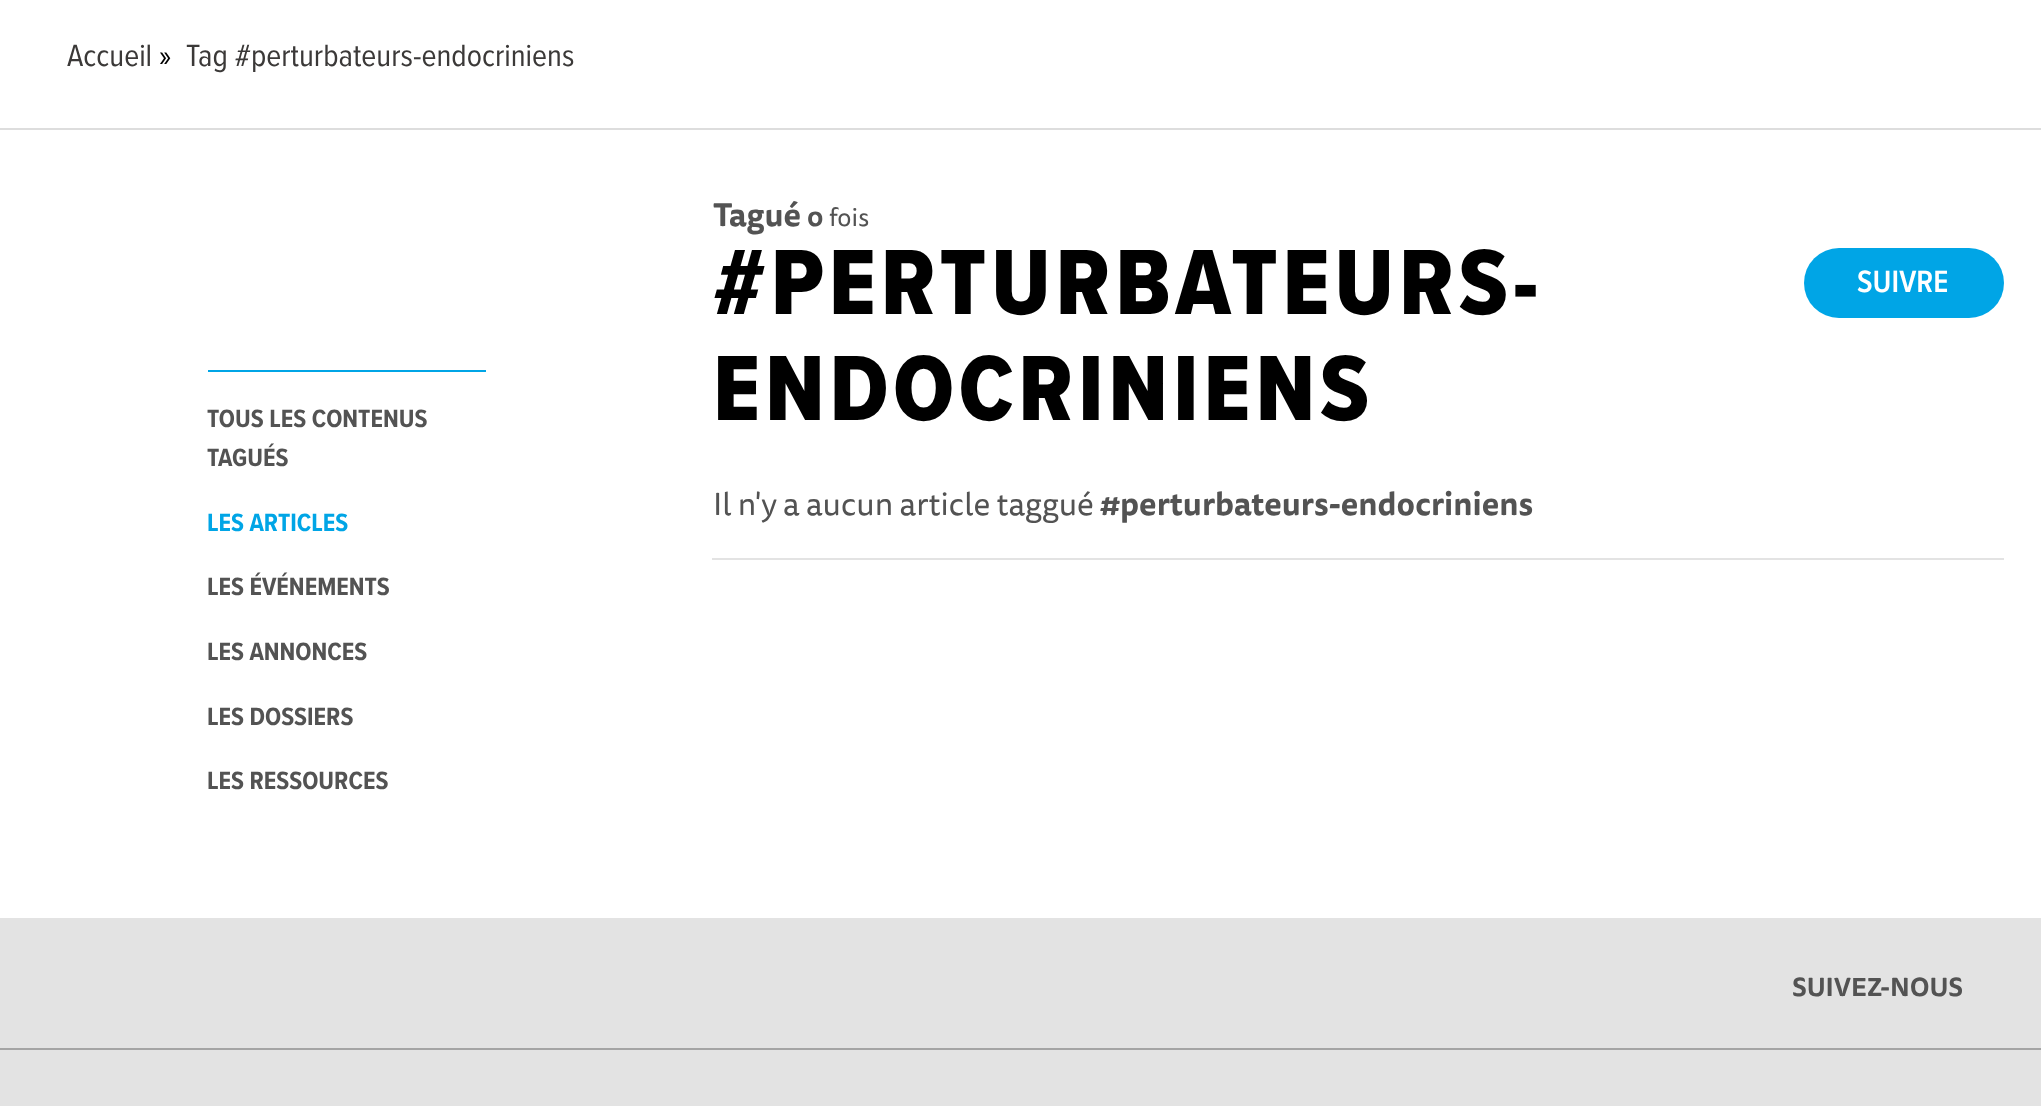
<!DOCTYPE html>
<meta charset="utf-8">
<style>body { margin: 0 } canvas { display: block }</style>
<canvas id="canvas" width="2041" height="1106"></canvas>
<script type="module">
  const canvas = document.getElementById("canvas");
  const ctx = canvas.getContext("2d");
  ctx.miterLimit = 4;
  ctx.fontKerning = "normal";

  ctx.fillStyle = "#ffffff";
  ctx.fillRect(0, 0, 2041, 1106);
  ctx.fillStyle = "#dddddd";
  ctx.fillRect(0, 128, 2041, 2);
  ctx.font = "32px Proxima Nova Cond";
  ctx.fillStyle = "#3b3938";
  ctx.fillText("Accueil", 67, 66);
  ctx.fillStyle = "#000000";
  ctx.fillText("»", 159, 66);
  ctx.fillStyle = "#3b3938";
  ctx.fillText("Tag #perturbateurs-endocriniens", 186, 66);
  ctx.font = "bold 32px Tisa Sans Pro";
  ctx.fillStyle = "#535353";
  ctx.fillText("Tagué", 713, 226);
  ctx.font = "bold 25.5px Tisa Sans Pro";
  ctx.fillText("0", 807, 226);
  ctx.font = "25.5px Tisa Sans Pro";
  ctx.fillText("fois", 829, 226);
  ctx.letterSpacing = "4.75px";
  ctx.font = "800 96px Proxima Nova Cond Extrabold";
  ctx.fillStyle = "#000000";
  ctx.fillText("#PERTURBATEURS-", 713, 314);
  ctx.fillText("ENDOCRINIENS", 713, 420);
  ctx.fillStyle = "#00a5e6";
  ctx.beginPath();
  ctx.roundRect(1804, 248, 200, 70, 35);
  ctx.fill();
  ctx.letterSpacing = "0px";
  ctx.font = "600 32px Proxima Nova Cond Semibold";
  ctx.fillStyle = "#ffffff";
  ctx.fillText("SUIVRE", 1857, 292);
  ctx.font = "32px Tisa Sans Pro";
  ctx.fillStyle = "#535353";
  ctx.fillText("Il n'y a aucun article taggué", 713, 515);
  ctx.font = "bold 32px Tisa Sans Pro";
  ctx.fillText("#perturbateurs-endocriniens", 1100, 515);
  ctx.fillStyle = "#e3e3e3";
  ctx.fillRect(712, 558, 1292, 2);
  ctx.fillStyle = "#00a5e6";
  ctx.fillRect(208, 370, 278, 2);
  ctx.font = "bold 26px Proxima Nova Cond";
  ctx.fillStyle = "#535353";
  ctx.fillText("TOUS LES CONTENUS", 207, 427);
  ctx.fillText("TAGUÉS", 207, 466);
  ctx.fillStyle = "#00a5e6";
  ctx.fillText("LES ARTICLES", 207, 531);
  ctx.fillStyle = "#535353";
  ctx.fillText("LES ÉVÉNEMENTS", 207, 595);
  ctx.fillText("LES ANNONCES", 207, 660);
  ctx.fillText("LES DOSSIERS", 207, 725);
  ctx.fillText("LES RESSOURCES", 207, 789);
  ctx.fillStyle = "#e3e3e3";
  ctx.fillRect(0, 918, 2041, 130);
  ctx.font = "bold 25.5px Tisa Sans Pro";
  ctx.fillStyle = "#535353";
  ctx.fillText("SUIVEZ-NOUS", 1792, 996);
  ctx.fillStyle = "#e3e3e3";
  ctx.fillRect(0, 1050, 2041, 56);
  ctx.fillStyle = "#a4a4a4";
  ctx.fillRect(0, 1048, 2041, 2);
</script>
